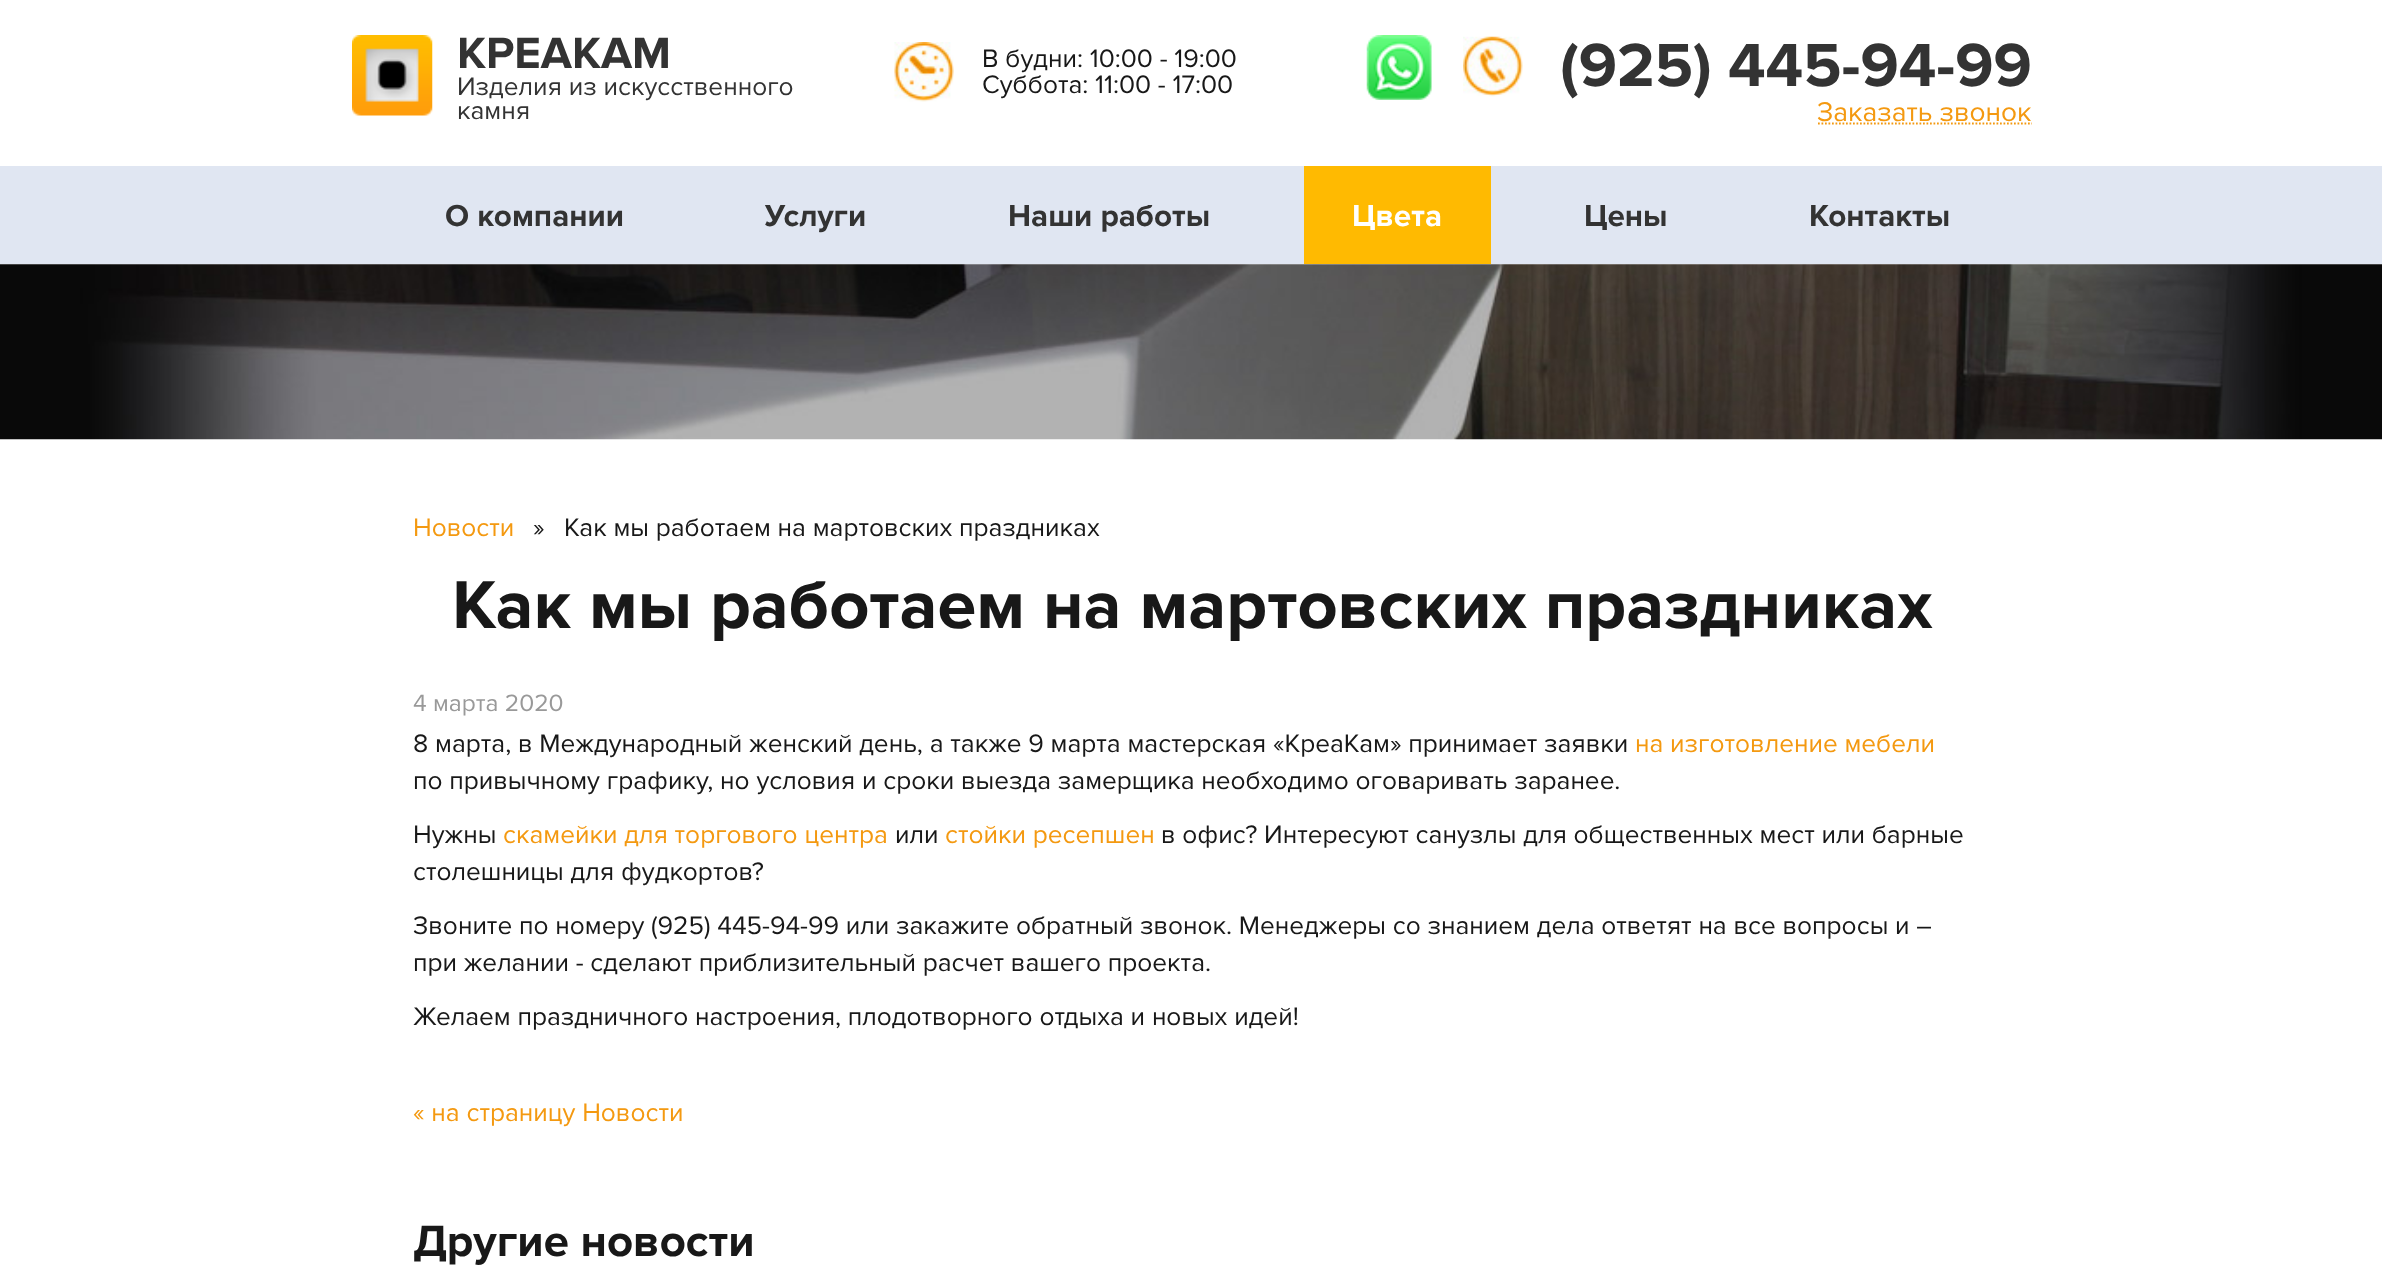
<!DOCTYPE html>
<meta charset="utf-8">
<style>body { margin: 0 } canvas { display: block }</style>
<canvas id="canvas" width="2382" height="1286"></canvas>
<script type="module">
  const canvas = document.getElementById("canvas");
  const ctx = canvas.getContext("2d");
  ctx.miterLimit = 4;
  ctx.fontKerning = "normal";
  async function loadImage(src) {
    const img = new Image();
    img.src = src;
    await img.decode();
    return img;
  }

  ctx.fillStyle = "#ffffff";
  ctx.fillRect(0, 0, 2382, 1286);
  ctx.drawImage(await loadImage("img1.png"), 352, 35, 81, 81);
  ctx.font = "bold 45.5px Proxima Nova";
  ctx.fillStyle = "#333333";
  ctx.fillText("КРЕАКАМ", 457, 68);
  ctx.font = "26.25px Proxima Nova";
  ctx.fillText("Изделия из искусственного", 457, 95);
  ctx.fillText("камня", 457, 119);
  ctx.drawImage(await loadImage("img2.png"), 894, 42, 60, 60);
  ctx.fillStyle = "#181818";
  ctx.fillText("В будни: 10:00 - 19:00", 982, 67);
  ctx.fillText("Суббота: 11:00 - 17:00", 982, 93);
  ctx.drawImage(await loadImage("img3.png"), 1366, 35, 66, 65);
  ctx.drawImage(await loadImage("img4.png"), 1463, 36, 60, 61);
  ctx.font = "bold 63px Proxima Nova";
  ctx.fillStyle = "#333333";
  ctx.fillText("(925) 445-94-99", 1560, 86);
  ctx.beginPath();
  ctx.moveTo(1818, 123.5);
  ctx.lineTo(2032, 123.5);
  ctx.strokeStyle = "#f49910";
  ctx.lineWidth = 1.8;
  ctx.setLineDash([1.75, 1.75]);
  ctx.stroke();
  ctx.font = "28px Proxima Nova";
  ctx.fillStyle = "#f49910";
  ctx.fillText("Заказать звонок", 1817, 121);
  ctx.fillStyle = "#e0e6f2";
  ctx.fillRect(0, 166, 2382, 98);
  ctx.font = "bold 31.5px Proxima Nova";
  ctx.fillStyle = "#333333";
  ctx.fillText("О компании", 445, 226);
  ctx.fillText("Услуги", 765, 226);
  ctx.fillText("Наши работы", 1008, 226);
  ctx.fillStyle = "#ffba01";
  ctx.fillRect(1304, 166, 187, 98);
  ctx.fillStyle = "#ffffff";
  ctx.fillText("Цвета", 1352, 226);
  ctx.fillStyle = "#333333";
  ctx.fillText("Цены", 1584, 226);
  ctx.fillText("Контакты", 1809, 226);
  ctx.drawImage(await loadImage("img5.png"), 0, 264, 2382, 176);
  ctx.font = "26.25px Proxima Nova";
  ctx.fillStyle = "#f49910";
  ctx.fillText("Новости", 413, 536);
  ctx.fillStyle = "#181818";
  ctx.fillText("»", 533, 536);
  ctx.fillText("Как мы работаем на мартовских праздниках", 564, 536);
  ctx.font = "bold 70px Proxima Nova";
  ctx.fillText("Как мы работаем на мартовских праздниках", 452, 628);
  ctx.font = "24.5px Proxima Nova";
  ctx.fillStyle = "#999999";
  ctx.fillText("4 марта 2020", 413, 711);
  ctx.font = "26.25px Proxima Nova";
  ctx.fillStyle = "#181818";
  ctx.fillText("8 марта, в Международный женский день, а также 9 марта мастерская «КреаКам» принимает заявки", 413, 752);
  ctx.fillStyle = "#f49910";
  ctx.fillText("на изготовление мебели", 1635, 752);
  ctx.fillStyle = "#181818";
  ctx.fillText("по привычному графику, но условия и сроки выезда замерщика необходимо оговаривать заранее.", 413, 789);
  ctx.fillText("Нужны", 413, 843);
  ctx.fillStyle = "#f49910";
  ctx.fillText("скамейки для торгового центра", 503, 843);
  ctx.fillStyle = "#181818";
  ctx.fillText("или", 895, 843);
  ctx.fillStyle = "#f49910";
  ctx.fillText("стойки ресепшен", 945, 843);
  ctx.fillStyle = "#181818";
  ctx.fillText("в офис? Интересуют санузлы для общественных мест или барные", 1161, 843);
  ctx.fillText("столешницы для фудкортов?", 413, 880);
  ctx.fillText("Звоните по номеру (925) 445-94-99 или закажите обратный звонок. Менеджеры со знанием дела ответят на все вопросы и –", 413, 934);
  ctx.fillText("при желании - сделают приблизительный расчет вашего проекта.", 413, 971);
  ctx.fillText("Желаем праздничного настроения, плодотворного отдыха и новых идей!", 413, 1025);
  ctx.fillStyle = "#f49910";
  ctx.fillText("« на страницу Новости", 413, 1121);
  ctx.font = "bold 45.5px Proxima Nova";
  ctx.fillStyle = "#181818";
  ctx.fillText("Другие новости", 413, 1256);
</script>
